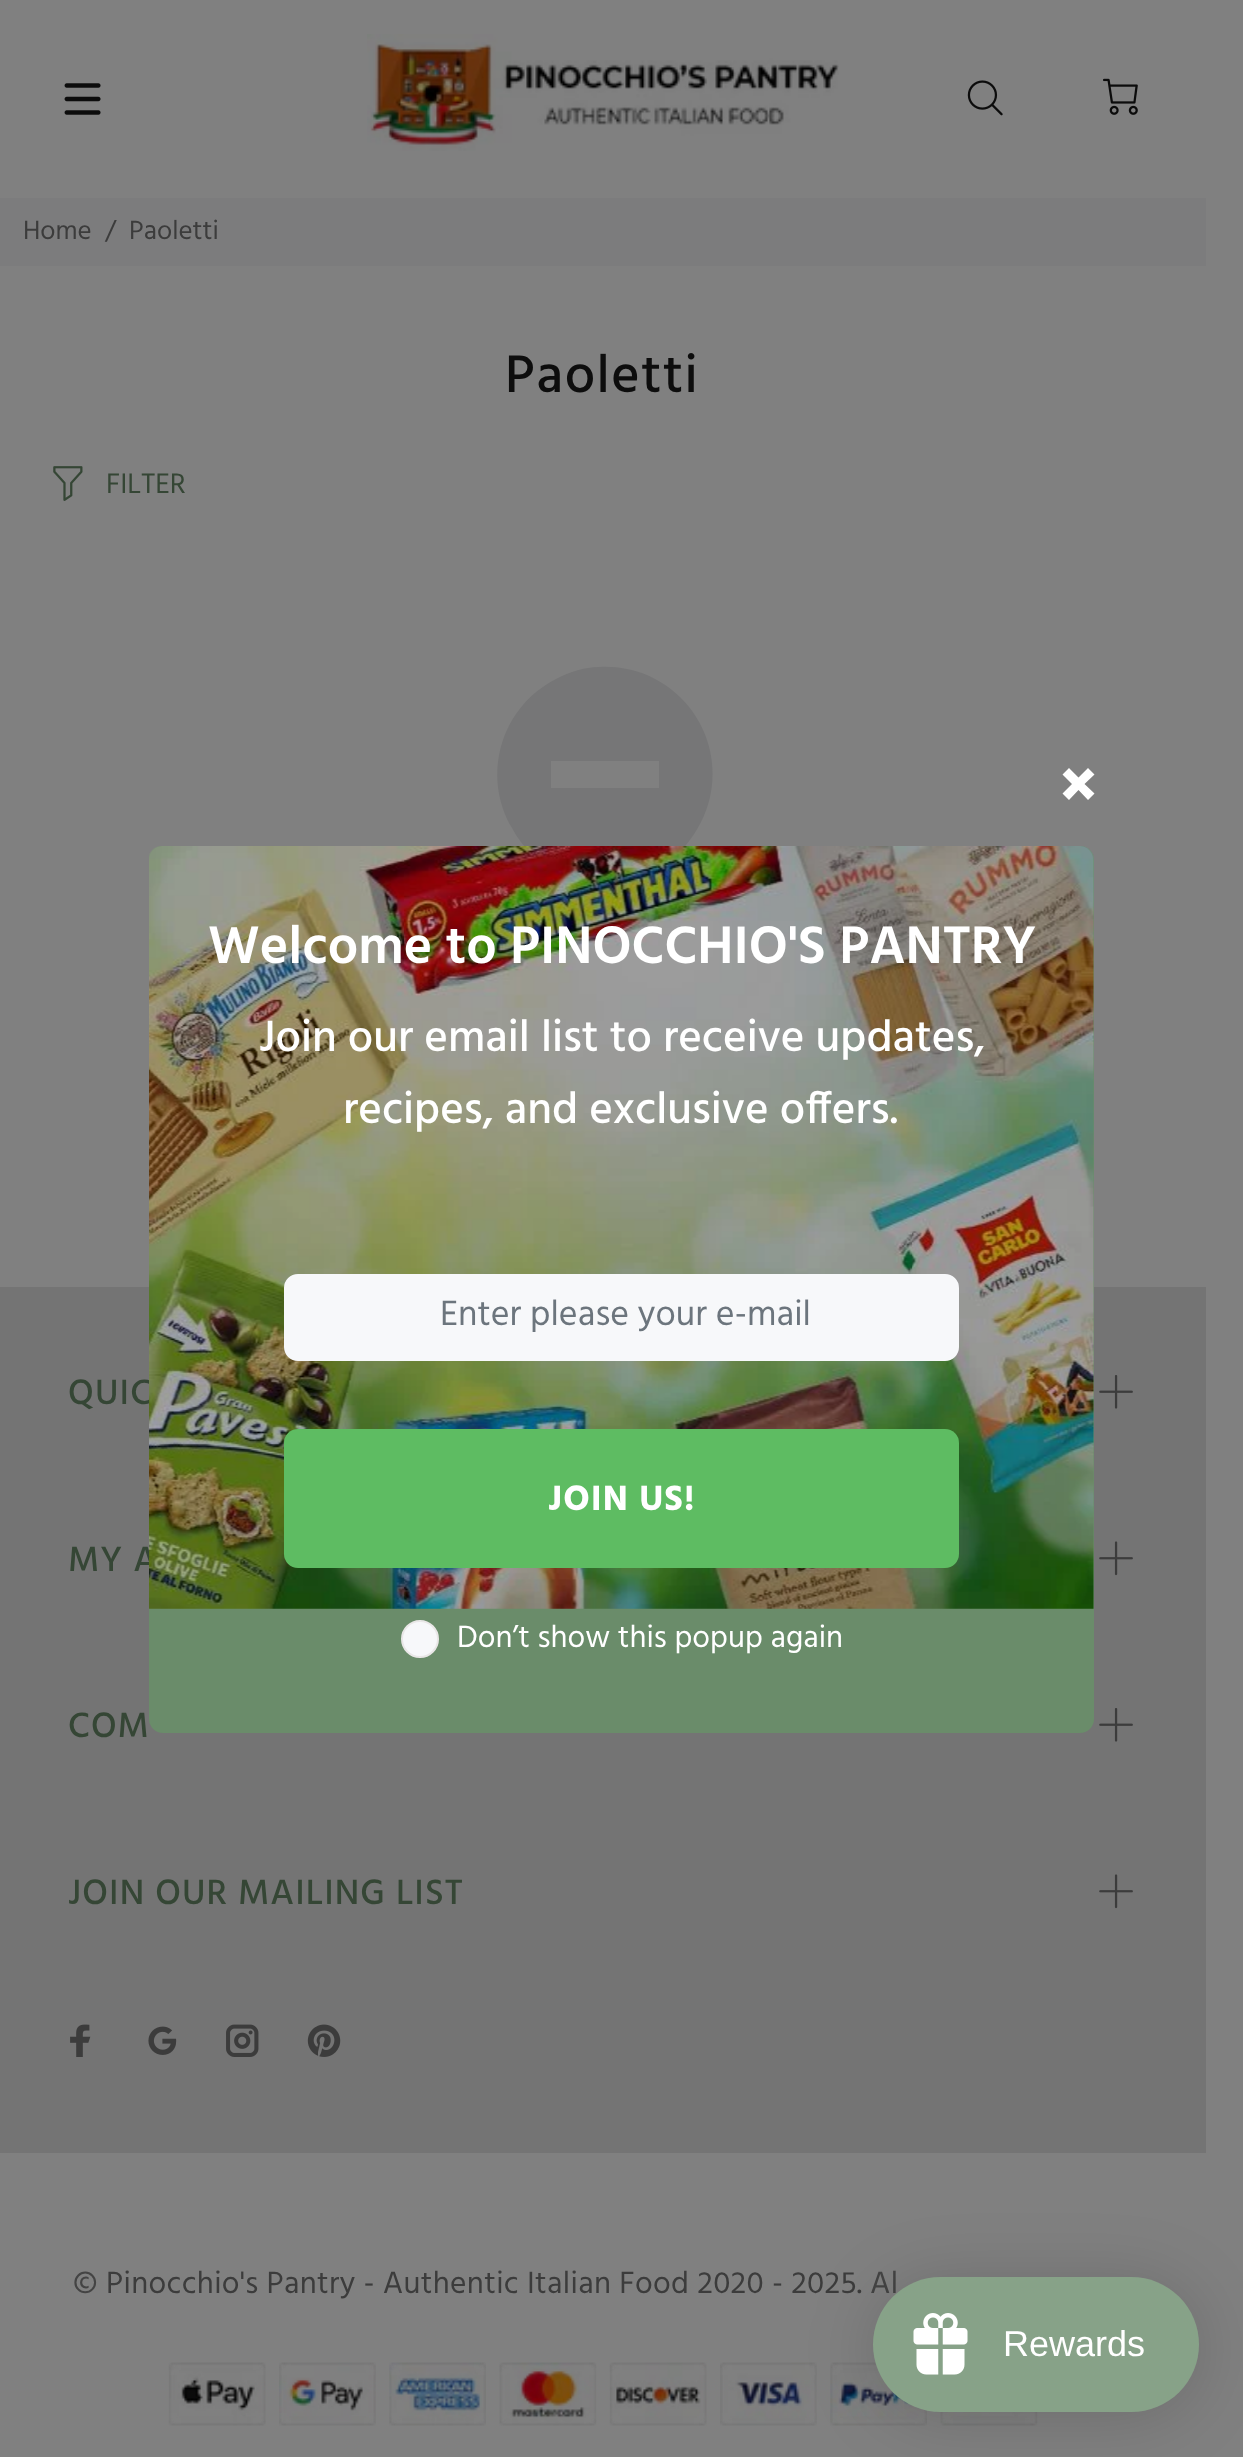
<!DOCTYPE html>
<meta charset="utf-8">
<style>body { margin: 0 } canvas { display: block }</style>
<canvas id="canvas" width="1243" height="2457"></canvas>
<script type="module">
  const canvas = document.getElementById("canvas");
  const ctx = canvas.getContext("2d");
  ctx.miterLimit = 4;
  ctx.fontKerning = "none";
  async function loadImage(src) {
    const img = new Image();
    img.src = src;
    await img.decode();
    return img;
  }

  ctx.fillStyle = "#808080";
  ctx.fillRect(0, 0, 1243, 2457);
  ctx.drawImage(await loadImage("img1.png"), 64, 83, 37, 32);
  ctx.drawImage(await loadImage("img2.png"), 367, 34, 472, 117);
  ctx.drawImage(await loadImage("img3.png"), 967, 80, 36, 36);
  ctx.drawImage(await loadImage("img4.png"), 1103, 78, 35, 37);
  ctx.fillStyle = "#7c7c7d";
  ctx.fillRect(0, 198, 1206, 68);
  ctx.font = "27px Hind";
  ctx.fillStyle = "#3c3c3c";
  ctx.fillText("Home", 23, 239);
  ctx.fillText("/", 105, 239);
  ctx.fillText("Paoletti", 129, 239);
  ctx.letterSpacing = "1.5px";
  ctx.font = "500 54px Hind";
  ctx.fillStyle = "#0d0d0d";
  ctx.fillText("Paoletti", 505, 392);
  ctx.drawImage(await loadImage("img5.png"), 53, 466, 30, 35);
  ctx.letterSpacing = "0px";
  ctx.font = "29px Hind";
  ctx.fillStyle = "#354635";
  ctx.fillText("FILTER", 106, 493);
  ctx.fillStyle = "#767677";
  ctx.beginPath();
  ctx.moveTo(647, 675);
  ctx.bezierCurveTo(715, 705, 734, 789, 686, 845);
  ctx.bezierCurveTo(671, 864, 648, 877, 624, 881);
  ctx.bezierCurveTo(604, 885, 582, 882, 563, 874);
  ctx.bezierCurveTo(541, 865, 523, 849, 512, 828);
  ctx.bezierCurveTo(481, 775, 501, 707, 556, 679);
  ctx.bezierCurveTo(569, 672, 584, 667, 599, 667);
  ctx.bezierCurveTo(616, 666, 632, 669, 647, 675);
  ctx.closePath();
  ctx.moveTo(659, 761);
  ctx.lineTo(551, 761);
  ctx.lineTo(551, 788);
  ctx.lineTo(659, 788);
  ctx.closePath();
  ctx.fill();
  ctx.fillStyle = "#ffffff";
  ctx.beginPath();
  ctx.moveTo(1094.5, 774.5);
  ctx.lineTo(1084.5, 784);
  ctx.lineTo(1094.5, 793.5);
  ctx.lineTo(1088, 800);
  ctx.lineTo(1078.5, 790);
  ctx.lineTo(1069, 800);
  ctx.lineTo(1062.5, 793.5);
  ctx.lineTo(1072, 784);
  ctx.lineTo(1062.5, 774.5);
  ctx.lineTo(1069, 768);
  ctx.lineTo(1078.5, 777.5);
  ctx.lineTo(1088, 768);
  ctx.closePath();
  ctx.fill();
  ctx.fillStyle = "#747474";
  ctx.fillRect(0, 1287, 1206, 866);
  ctx.letterSpacing = "1.1px";
  ctx.font = "500 36px Hind";
  ctx.fillStyle = "#354635";
  ctx.fillText("QUIC", 68, 1404);
  ctx.fillText("MY A", 68, 1571);
  ctx.fillStyle = "#6a8c6a";
  ctx.beginPath();
  ctx.roundRect(149, 846, 945, 887, 14);
  ctx.fill();
  ctx.drawImage(await loadImage("img6.png"), 149, 846, 945, 763);
  ctx.letterSpacing = "0px";
  ctx.font = "600 54px Hind";
  ctx.fillStyle = "#ffffff";
  ctx.fillText("Welcome to PINOCCHIO'S PANTRY", 208, 963);
  ctx.font = "500 45px Hind";
  ctx.fillText("Join our email list to receive updates,", 259, 1051);
  ctx.fillText("recipes, and exclusive offers.", 343, 1123);
  ctx.fillStyle = "#f7f8fa";
  ctx.beginPath();
  ctx.roundRect(285, 1275, 673, 85, 13);
  ctx.fill();
  ctx.strokeStyle = "#f7f8fa";
  ctx.lineWidth = 2;
  ctx.stroke();
  ctx.font = "36px Hind";
  ctx.fillStyle = "#6c757d";
  ctx.fillText("Enter please your e-mail", 440, 1325);
  ctx.fillStyle = "#5ebc62";
  ctx.beginPath();
  ctx.roundRect(284, 1429, 675, 139, 14);
  ctx.fill();
  ctx.letterSpacing = "1.1px";
  ctx.font = "bold 36px Hind";
  ctx.fillStyle = "#ffffff";
  ctx.fillText("JOIN US!", 548, 1510);
  ctx.fillStyle = "#f7f8fa";
  ctx.beginPath();
  ctx.arc(420, 1639, 18, 0, Math.PI * 2);
  ctx.fill();
  ctx.strokeStyle = "#e9e7e7";
  ctx.stroke();
  ctx.letterSpacing = "0px";
  ctx.font = "31.5px Hind";
  ctx.fillStyle = "#ffffff";
  ctx.fillText("Don’t show this popup again", 457, 1647);
  ctx.drawImage(await loadImage("img7.png"), 1099, 1375, 34, 34);
  ctx.drawImage(await loadImage("img8.png"), 1099, 1541, 34, 35);
  ctx.letterSpacing = "1.1px";
  ctx.font = "500 36px Hind";
  ctx.fillStyle = "#354635";
  ctx.fillText("COM", 68, 1737);
  ctx.drawImage(await loadImage("img7.png"), 1099, 1708, 34, 34);
  ctx.fillText("JOIN OUR MAILING LIST", 68, 1904);
  ctx.drawImage(await loadImage("img8.png"), 1099, 1874, 34, 35);
  ctx.drawImage(await loadImage("img9.png"), 70, 2024, 21, 33);
  ctx.drawImage(await loadImage("img10.png"), 148, 2026, 29, 29);
  ctx.drawImage(await loadImage("img11.png"), 226, 2024, 33, 33);
  ctx.drawImage(await loadImage("img12.png"), 307, 2024, 34, 33);
  ctx.letterSpacing = "0.32px";
  ctx.font = "31.5px Hind";
  ctx.fillStyle = "#444444";
  ctx.fillText("©", 73, 2293);
  ctx.fillStyle = "#3c3c3c";
  ctx.fillText("Pinocchio's Pantry - Authentic Italian Food 2020 - 2025.", 106, 2293);
  ctx.fillStyle = "#444444";
  ctx.fillText("Al", 870, 2293);
  ctx.drawImage(await loadImage("img13.png"), 168, 2362, 98, 64);
  ctx.drawImage(await loadImage("img14.png"), 279, 2362, 97, 64);
  ctx.drawImage(await loadImage("img15.png"), 389, 2362, 97, 64);
  ctx.drawImage(await loadImage("img16.png"), 499, 2362, 98, 64);
  ctx.drawImage(await loadImage("img17.png"), 609, 2362, 98, 64);
  ctx.drawImage(await loadImage("img18.png"), 720, 2362, 97, 64);
  ctx.drawImage(await loadImage("img19.png"), 830, 2362, 97, 64);
  ctx.drawImage(await loadImage("img20.png"), 940, 2412, 98, 14);
  ctx.fillStyle = "rgba(0, 0, 0, 0.15)";
  ctx.filter = "blur(34px)";
  ctx.beginPath();
  ctx.roundRect(873, 2282, 326, 135, 67.5);
  ctx.fill();
  ctx.filter = "none";
  ctx.fillStyle = "#87a288";
  ctx.beginPath();
  ctx.roundRect(873, 2277, 326, 135, 67.5);
  ctx.fill();
  ctx.drawImage(await loadImage("img21.png"), 913, 2313, 55, 62);
  ctx.letterSpacing = "0px";
  ctx.font = "36px Liberation Sans";
  ctx.fillStyle = "#ffffff";
  ctx.fillText("Rewards", 1003, 2356);
</script>
